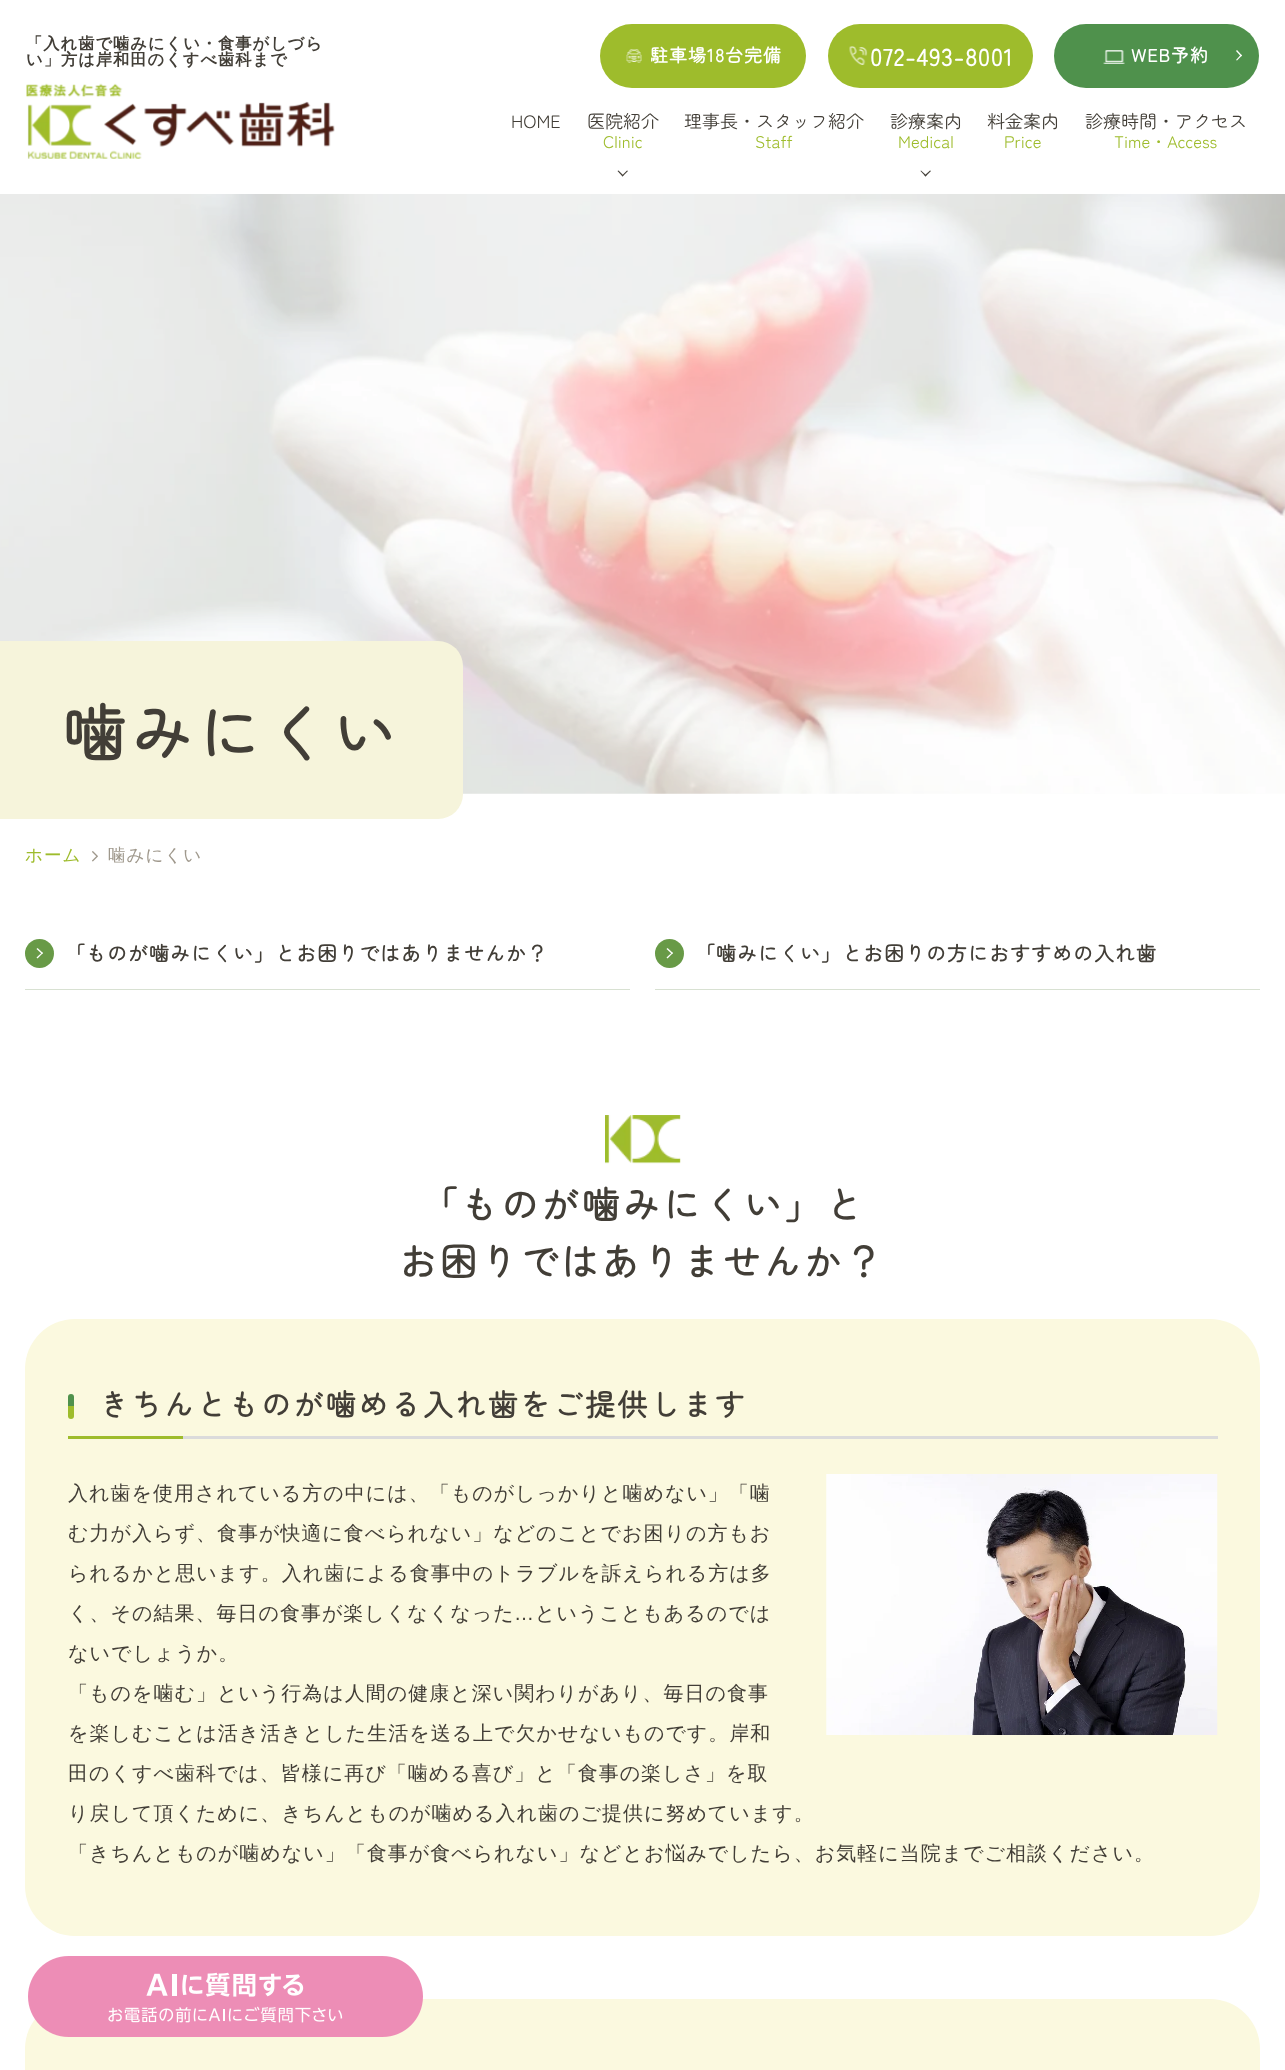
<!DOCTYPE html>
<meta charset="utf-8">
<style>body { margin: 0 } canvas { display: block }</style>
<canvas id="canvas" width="1285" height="2070"></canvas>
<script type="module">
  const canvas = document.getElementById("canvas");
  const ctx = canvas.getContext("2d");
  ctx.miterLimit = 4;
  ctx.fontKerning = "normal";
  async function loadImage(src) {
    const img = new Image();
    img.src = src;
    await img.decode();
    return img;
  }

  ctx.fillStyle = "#ffffff";
  ctx.fillRect(0, 0, 1285, 2070);
  ctx.letterSpacing = "1px";
  ctx.font = "bold 16.25px WenQuanYi Zen Hei";
  ctx.fillStyle = "#423e37";
  ctx.fillText("「入れ歯で噛みにくい・食事がしづら", 26, 49);
  ctx.fillText("い」方は岸和田のくすべ歯科まで", 26, 65);
  ctx.drawImage(await loadImage("img1.png"), 26, 83, 309, 76);
  ctx.fillStyle = "#9ebc2c";
  ctx.beginPath();
  ctx.roundRect(600, 24, 206, 64, 32);
  ctx.fill();
  ctx.drawImage(await loadImage("img2.png"), 626, 49, 16, 14);
  ctx.font = "bold 18px Zen Maru Gothic";
  ctx.fillStyle = "#ffffff";
  ctx.fillText("駐車場18台完備", 650, 62);
  ctx.fillStyle = "#9ebc2c";
  ctx.beginPath();
  ctx.roundRect(828, 24, 205, 64, 32);
  ctx.fill();
  ctx.drawImage(await loadImage("img3.png"), 849, 46, 19, 19);
  ctx.font = "bold 23.5px Zen Maru Gothic";
  ctx.fillStyle = "#ffffff";
  ctx.fillText("072-493-8001", 870, 66);
  ctx.fillStyle = "#4f914c";
  ctx.beginPath();
  ctx.roundRect(1054, 24, 205, 64, 32);
  ctx.fill();
  ctx.drawImage(await loadImage("img4.png"), 1103, 50, 22, 14);
  ctx.font = "bold 18px Zen Maru Gothic";
  ctx.fillStyle = "#ffffff";
  ctx.fillText("WEB予約", 1131, 62);
  ctx.beginPath();
  ctx.moveTo(1237, 50);
  ctx.lineTo(1242, 55.5);
  ctx.lineTo(1241, 56.5);
  ctx.lineTo(1236, 51);
  ctx.closePath();
  ctx.fill();
  ctx.beginPath();
  ctx.moveTo(1241, 54.5);
  ctx.lineTo(1242, 55.5);
  ctx.lineTo(1237, 60.5);
  ctx.lineTo(1236, 60);
  ctx.closePath();
  ctx.fill();
  ctx.letterSpacing = "0px";
  ctx.font = "18px Zen Maru Gothic";
  ctx.fillStyle = "#423e37";
  ctx.fillText("HOME", 511, 128);
  ctx.fillText("医院紹介", 587, 128);
  ctx.font = "16.75px Zen Maru Gothic";
  ctx.fillStyle = "#9ebc2c";
  ctx.fillText("Clinic", 603, 148);
  ctx.fillStyle = "#423e37";
  ctx.beginPath();
  ctx.moveTo(627, 170.5);
  ctx.lineTo(628, 171);
  ctx.lineTo(622.5, 176.5);
  ctx.lineTo(622, 175.5);
  ctx.closePath();
  ctx.fill();
  ctx.beginPath();
  ctx.moveTo(618.5, 170.5);
  ctx.lineTo(623.5, 175.5);
  ctx.lineTo(622.5, 176.5);
  ctx.lineTo(617.5, 171);
  ctx.closePath();
  ctx.fill();
  ctx.font = "18px Zen Maru Gothic";
  ctx.fillText("理事長・スタッフ紹介", 684, 128);
  ctx.font = "16.75px Zen Maru Gothic";
  ctx.fillStyle = "#9ebc2c";
  ctx.fillText("Staff", 755, 148);
  ctx.font = "18px Zen Maru Gothic";
  ctx.fillStyle = "#423e37";
  ctx.fillText("診療案内", 890, 128);
  ctx.font = "16.75px Zen Maru Gothic";
  ctx.fillStyle = "#9ebc2c";
  ctx.fillText("Medical", 898, 148);
  ctx.fillStyle = "#423e37";
  ctx.beginPath();
  ctx.moveTo(930, 170.5);
  ctx.lineTo(931, 171);
  ctx.lineTo(925.5, 176.5);
  ctx.lineTo(924.5, 175.5);
  ctx.closePath();
  ctx.fill();
  ctx.beginPath();
  ctx.moveTo(921, 170.5);
  ctx.lineTo(926.5, 175.5);
  ctx.lineTo(925.5, 176.5);
  ctx.lineTo(920.5, 171);
  ctx.closePath();
  ctx.fill();
  ctx.font = "18px Zen Maru Gothic";
  ctx.fillText("料金案内", 987, 128);
  ctx.font = "16.75px Zen Maru Gothic";
  ctx.fillStyle = "#9ebc2c";
  ctx.fillText("Price", 1004, 148);
  ctx.font = "18px Zen Maru Gothic";
  ctx.fillStyle = "#423e37";
  ctx.fillText("診療時間・アクセス", 1085, 128);
  ctx.font = "16.75px Zen Maru Gothic";
  ctx.fillStyle = "#9ebc2c";
  ctx.fillText("Time・Access", 1114, 148);
  ctx.drawImage(await loadImage("img5.png"), 0, 194, 1285, 600);
  ctx.fillStyle = "#f6f4db";
  ctx.beginPath();
  ctx.roundRect(0, 641, 463, 178, [0, 25, 25, 0]);
  ctx.fill();
  ctx.letterSpacing = "5px";
  ctx.font = "bold 62.5px Zen Maru Gothic";
  ctx.fillStyle = "#423e37";
  ctx.fillText("噛みにくい", 63, 757);
  ctx.letterSpacing = "1px";
  ctx.font = "500 17.5px WenQuanYi Zen Hei";
  ctx.fillStyle = "#9ebc2c";
  ctx.fillText("ホーム", 25, 861);
  ctx.drawImage(await loadImage("img6.png"), 92, 851, 6, 11);
  ctx.fillStyle = "#9f988c";
  ctx.fillText("噛みにくい", 108, 861);
  ctx.fillStyle = "#d8e1d2";
  ctx.fillRect(25, 989, 605, 1);
  ctx.fillStyle = "#689a47";
  ctx.beginPath();
  ctx.arc(39.5, 953.5, 14.5, 0, Math.PI * 2);
  ctx.fill();
  ctx.font = "bold 20px Zen Maru Gothic";
  ctx.fillStyle = "#423e37";
  ctx.fillText("「ものが噛みにくい」とお困りではありませんか？", 65, 961);
  ctx.fillStyle = "#ffffff";
  ctx.beginPath();
  ctx.moveTo(37.5, 948);
  ctx.lineTo(43, 953);
  ctx.lineTo(42, 954);
  ctx.lineTo(36.5, 949);
  ctx.closePath();
  ctx.fill();
  ctx.beginPath();
  ctx.moveTo(42, 952.5);
  ctx.lineTo(43, 953);
  ctx.lineTo(37.5, 958.5);
  ctx.lineTo(36.5, 957.5);
  ctx.closePath();
  ctx.fill();
  ctx.fillStyle = "#d8e1d2";
  ctx.fillRect(655, 989, 605, 1);
  ctx.fillStyle = "#689a47";
  ctx.beginPath();
  ctx.arc(669.5, 953.5, 14.5, 0, Math.PI * 2);
  ctx.fill();
  ctx.fillStyle = "#423e37";
  ctx.fillText("「噛みにくい」とお困りの方におすすめの入れ歯", 695, 961);
  ctx.fillStyle = "#ffffff";
  ctx.beginPath();
  ctx.moveTo(667.5, 948);
  ctx.lineTo(673, 953);
  ctx.lineTo(672, 954);
  ctx.lineTo(666.5, 949);
  ctx.closePath();
  ctx.fill();
  ctx.beginPath();
  ctx.moveTo(672, 952.5);
  ctx.lineTo(673, 953);
  ctx.lineTo(667.5, 958.5);
  ctx.lineTo(666.5, 957.5);
  ctx.closePath();
  ctx.fill();
  ctx.drawImage(await loadImage("img7.png"), 605, 1115, 76, 49);
  ctx.letterSpacing = "3px";
  ctx.font = "bold 37.5px Zen Maru Gothic";
  ctx.fillStyle = "#423e37";
  ctx.fillText("「ものが噛みにくい」と", 420, 1219);
  ctx.fillText("お困りではありませんか？", 399, 1276);
  ctx.fillStyle = "#fbf9df";
  ctx.beginPath();
  ctx.roundRect(25, 1319, 1235, 617, 50);
  ctx.fill();
  ctx.fillStyle = "#4f914c";
  ctx.beginPath();
  ctx.roundRect(68, 1394, 6, 12, [3, 3, 0, 0]);
  ctx.fill();
  ctx.fillStyle = "#9ebc2c";
  ctx.beginPath();
  ctx.roundRect(68, 1406, 6, 13, [0, 0, 3, 3]);
  ctx.fill();
  ctx.letterSpacing = "2.4px";
  ctx.font = "bold 30px Zen Maru Gothic";
  ctx.fillStyle = "#423e37";
  ctx.fillText("きちんとものが噛める入れ歯をご提供します", 99, 1416);
  ctx.fillStyle = "#9ebc2c";
  ctx.fillRect(68, 1436, 115, 3);
  ctx.fillStyle = "#dbdbdb";
  ctx.fillRect(183, 1436, 1035, 3);
  ctx.letterSpacing = "1px";
  ctx.font = "500 20px WenQuanYi Zen Hei";
  ctx.fillStyle = "#423e37";
  ctx.fillText("入れ歯を使用されている方の中には、「ものがしっかりと噛めない」「噛", 68, 1500);
  ctx.drawImage(await loadImage("img8.png"), 826, 1474, 392, 261);
  ctx.fillText("む力が入らず、食事が快適に食べられない」などのことでお困りの方もお", 68, 1540);
  ctx.fillText("られるかと思います。入れ歯による食事中のトラブルを訴えられる方は多", 68, 1580);
  ctx.fillText("く、その結果、毎日の食事が楽しくなくなった", 68, 1620);
  ctx.font = "20px Liberation Sans";
  ctx.fillText("…", 514, 1620);
  ctx.font = "500 20px WenQuanYi Zen Hei";
  ctx.fillText("ということもあるのでは", 535, 1620);
  ctx.fillText("ないでしょうか。", 68, 1660);
  ctx.fillText("「ものを噛む」という行為は人間の健康と深い関わりがあり、毎日の食事", 68, 1700);
  ctx.fillText("を楽しむことは活き活きとした生活を送る上で欠かせないものです。岸和", 68, 1740);
  ctx.fillText("田のくすべ歯科では、皆様に再び「噛める喜び」と「食事の楽しさ」を取", 68, 1780);
  ctx.fillText("り戻して頂くために、きちんとものが噛める入れ歯のご提供に努めています。", 68, 1820);
  ctx.fillText("「きちんとものが噛めない」「食事が食べられない」などとお悩みでしたら、お気軽に当院までご相談ください。", 68, 1860);
  ctx.fillStyle = "#fbf9df";
  ctx.beginPath();
  ctx.roundRect(25, 1999, 1235, 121, 50);
  ctx.fill();
  ctx.drawImage(await loadImage("img9.png"), 28, 1956, 395, 81);
</script>
